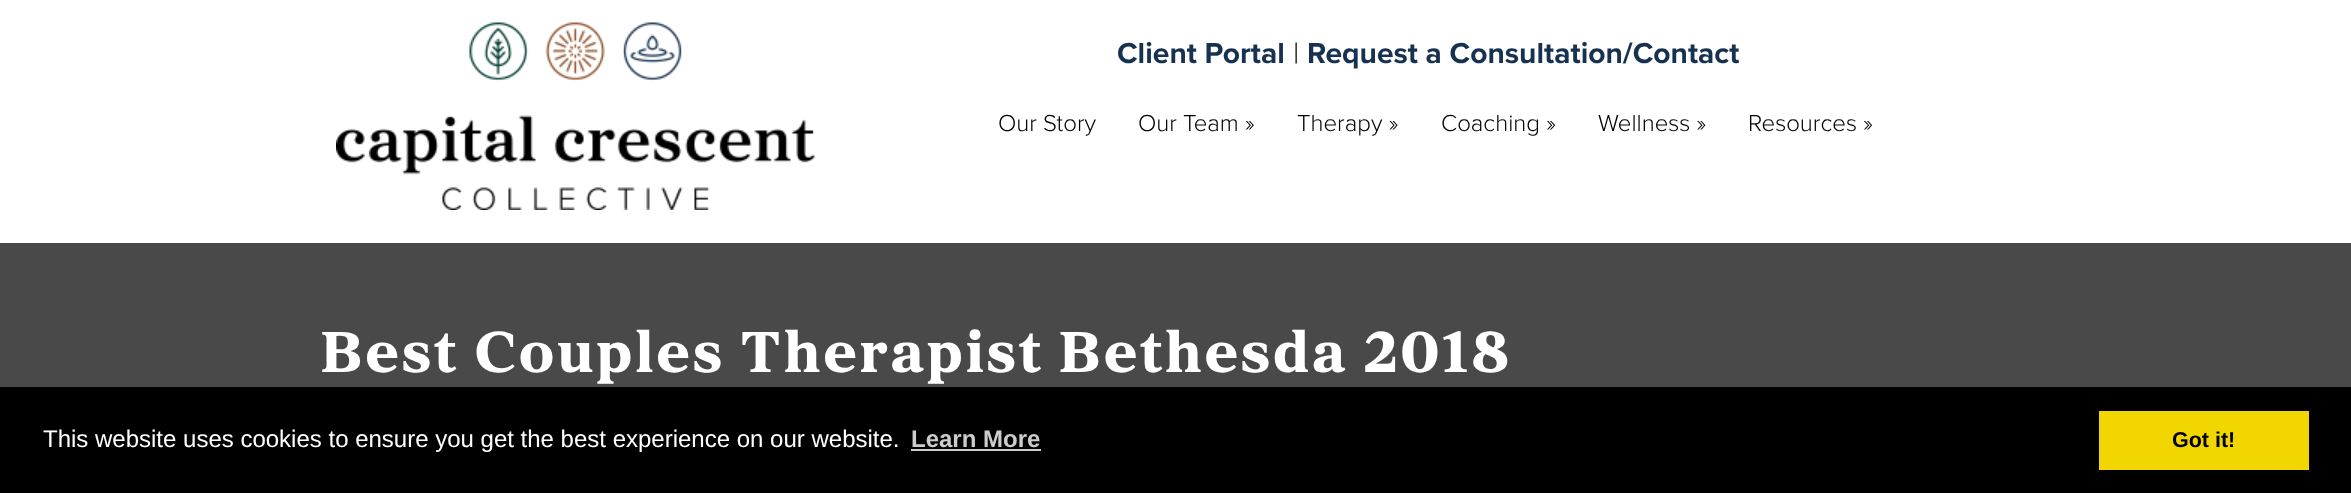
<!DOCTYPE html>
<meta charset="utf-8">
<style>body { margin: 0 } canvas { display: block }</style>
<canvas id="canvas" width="2351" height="493"></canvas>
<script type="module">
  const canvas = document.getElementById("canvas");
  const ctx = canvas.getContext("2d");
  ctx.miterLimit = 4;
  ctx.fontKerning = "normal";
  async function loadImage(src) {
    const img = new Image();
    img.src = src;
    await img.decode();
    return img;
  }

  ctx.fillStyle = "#ffffff";
  ctx.fillRect(0, 0, 2351, 493);
  ctx.drawImage(await loadImage("img1.png"), 336, 22, 479, 188);
  ctx.font = "bold 30px Proxima Nova";
  ctx.fillStyle = "#173251";
  ctx.fillText("Client Portal", 1117, 63);
  ctx.font = "300 30px Proxima Nova";
  ctx.fillStyle = "#000000";
  ctx.fillText("|", 1293, 63);
  ctx.font = "bold 30px Proxima Nova";
  ctx.fillStyle = "#173251";
  ctx.fillText("Request a Consultation/Contact", 1307, 63);
  ctx.font = "300 24px Proxima Nova";
  ctx.fillStyle = "#000000";
  ctx.fillText("Our Story", 998, 131);
  ctx.fillText("Our Team »", 1138, 131);
  ctx.fillText("Therapy »", 1297, 131);
  ctx.fillText("Coaching »", 1441, 131);
  ctx.fillText("Wellness »", 1598, 131);
  ctx.fillText("Resources »", 1748, 131);
  ctx.fillStyle = "#494949";
  ctx.fillRect(0, 243, 2351, 144);
  ctx.letterSpacing = "3px";
  ctx.font = "800 60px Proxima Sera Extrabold";
  ctx.fillStyle = "#ffffff";
  ctx.fillText("Best Couples Therapist Bethesda 2018", 321, 372);
  ctx.fillStyle = "#000000";
  ctx.fillRect(0, 387, 2351, 106);
  ctx.letterSpacing = "0px";
  ctx.font = "24px Liberation Sans";
  ctx.fillStyle = "#ffffff";
  ctx.fillText("This website uses cookies to ensure you get the best experience on our website.", 43, 447);
  ctx.font = "bold 24px Liberation Sans";
  ctx.fillStyle = "#cccccc";
  ctx.fillText("Learn More", 911, 447);
  ctx.fillRect(911, 449, 130, 2);
  ctx.fillStyle = "#f1d600";
  ctx.fillRect(2099, 411, 210, 59);
  ctx.font = "bold 21.5px Liberation Sans";
  ctx.fillStyle = "#000000";
  ctx.fillText("Got it!", 2172, 447);
</script>
